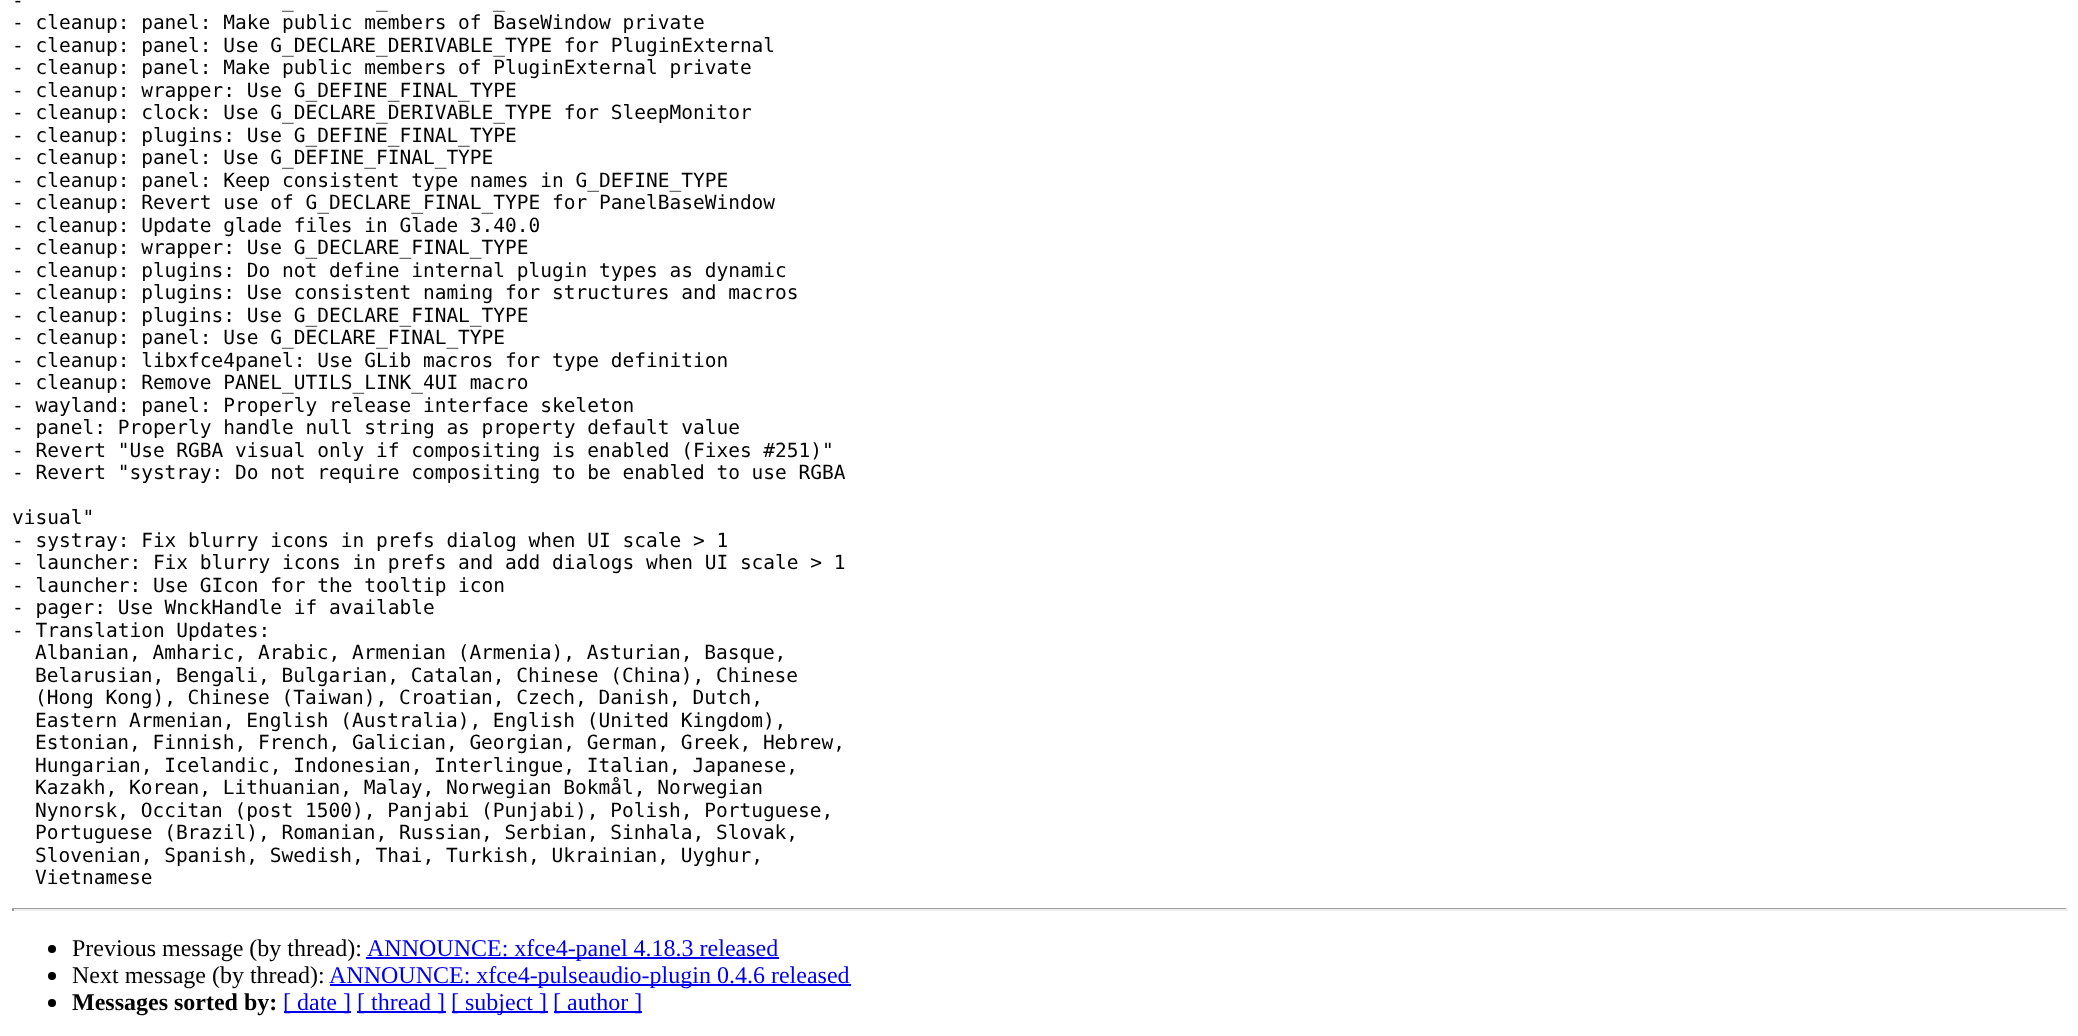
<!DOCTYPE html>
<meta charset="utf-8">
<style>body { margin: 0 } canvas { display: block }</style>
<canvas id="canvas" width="2078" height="1036"></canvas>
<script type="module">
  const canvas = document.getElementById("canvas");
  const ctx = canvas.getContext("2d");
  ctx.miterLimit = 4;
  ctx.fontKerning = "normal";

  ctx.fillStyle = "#ffffff";
  ctx.fillRect(0, 0, 2078, 1036);
  ctx.font = "19.5px DejaVu Sans Mono";
  ctx.fillStyle = "#000000";
  ctx.fillText("-", 12, 7);
  ctx.fillText("_", 282, 7);
  ctx.fillText("_", 376, 7);
  ctx.fillText("_", 493, 7);
  ctx.fillText("- cleanup: panel: Make public members of BaseWindow private", 12, 29);
  ctx.fillText("- cleanup: panel: Use G_DECLARE_DERIVABLE_TYPE for PluginExternal", 12, 52);
  ctx.fillText("- cleanup: panel: Make public members of PluginExternal private", 12, 74);
  ctx.fillText("- cleanup: wrapper: Use G_DEFINE_FINAL_TYPE", 12, 97);
  ctx.fillText("- cleanup: clock: Use G_DECLARE_DERIVABLE_TYPE for SleepMonitor", 12, 119);
  ctx.fillText("- cleanup: plugins: Use G_DEFINE_FINAL_TYPE", 12, 142);
  ctx.fillText("- cleanup: panel: Use G_DEFINE_FINAL_TYPE", 12, 164);
  ctx.fillText("- cleanup: panel: Keep consistent type names in G_DEFINE_TYPE", 12, 187);
  ctx.fillText("- cleanup: Revert use of G_DECLARE_FINAL_TYPE for PanelBaseWindow", 12, 209);
  ctx.fillText("- cleanup: Update glade files in Glade 3.40.0", 12, 232);
  ctx.fillText("- cleanup: wrapper: Use G_DECLARE_FINAL_TYPE", 12, 254);
  ctx.fillText("- cleanup: plugins: Do not define internal plugin types as dynamic", 12, 277);
  ctx.fillText("- cleanup: plugins: Use consistent naming for structures and macros", 12, 299);
  ctx.fillText("- cleanup: plugins: Use G_DECLARE_FINAL_TYPE", 12, 322);
  ctx.fillText("- cleanup: panel: Use G_DECLARE_FINAL_TYPE", 12, 344);
  ctx.fillText("- cleanup: libxfce4panel: Use GLib macros for type definition", 12, 367);
  ctx.fillText("- cleanup: Remove PANEL_UTILS_LINK_4UI macro", 12, 389);
  ctx.fillText("- wayland: panel: Properly release interface skeleton", 12, 412);
  ctx.fillText("- panel: Properly handle null string as property default value", 12, 434);
  ctx.fillText("- Revert \"Use RGBA visual only if compositing is enabled (Fixes #251)\"", 12, 457);
  ctx.fillText("- Revert \"systray: Do not require compositing to be enabled to use RGBA", 12, 479);
  ctx.fillText("visual\"", 12, 524);
  ctx.fillText("- systray: Fix blurry icons in prefs dialog when UI scale > 1", 12, 547);
  ctx.fillText("- launcher: Fix blurry icons in prefs and add dialogs when UI scale > 1", 12, 569);
  ctx.fillText("- launcher: Use GIcon for the tooltip icon", 12, 592);
  ctx.fillText("- pager: Use WnckHandle if available", 12, 614);
  ctx.fillText("- Translation Updates:", 12, 637);
  ctx.fillText("Albanian, Amharic, Arabic, Armenian (Armenia), Asturian, Basque,", 35, 659);
  ctx.fillText("Belarusian, Bengali, Bulgarian, Catalan, Chinese (China), Chinese", 35, 682);
  ctx.fillText("(Hong Kong), Chinese (Taiwan), Croatian, Czech, Danish, Dutch,", 35, 704);
  ctx.fillText("Eastern Armenian, English (Australia), English (United Kingdom),", 35, 727);
  ctx.fillText("Estonian, Finnish, French, Galician, Georgian, German, Greek, Hebrew,", 35, 749);
  ctx.fillText("Hungarian, Icelandic, Indonesian, Interlingue, Italian, Japanese,", 35, 772);
  ctx.fillText("Kazakh, Korean, Lithuanian, Malay, Norwegian Bokmål, Norwegian", 35, 794);
  ctx.fillText("Nynorsk, Occitan (post 1500), Panjabi (Punjabi), Polish, Portuguese,", 35, 817);
  ctx.fillText("Portuguese (Brazil), Romanian, Russian, Serbian, Sinhala, Slovak,", 35, 839);
  ctx.fillText("Slovenian, Spanish, Swedish, Thai, Turkish, Ukrainian, Uyghur,", 35, 862);
  ctx.fillText("Vietnamese", 35, 884);
  ctx.fillStyle = "#9f9f9f";
  ctx.fillRect(12, 908, 2055, 1);
  ctx.fillStyle = "#eeeeee";
  ctx.fillRect(2066, 908, 2, 3);
  ctx.fillRect(12, 909, 2055, 2);
  ctx.fillStyle = "#9f9f9f";
  ctx.fillRect(12, 908, 2, 3);
  ctx.fillStyle = "#000000";
  ctx.beginPath();
  ctx.arc(52, 949, 4, 0, Math.PI * 2);
  ctx.fill();
  ctx.font = "24px Liberation Serif";
  ctx.fillText("Previous message (by thread):", 72, 956);
  ctx.fillStyle = "#0000ee";
  ctx.fillRect(366, 957, 413, 2);
  ctx.fillText("ANNOUNCE: xfce4-panel 4.18.3 released", 367, 956);
  ctx.fillStyle = "#000000";
  ctx.beginPath();
  ctx.arc(52, 976, 4, 0, Math.PI * 2);
  ctx.fill();
  ctx.fillText("Next message (by thread):", 72, 983);
  ctx.fillStyle = "#0000ee";
  ctx.fillRect(330, 984, 521, 2);
  ctx.fillText("ANNOUNCE: xfce4-pulseaudio-plugin 0.4.6 released", 329, 983);
  ctx.fillStyle = "#000000";
  ctx.beginPath();
  ctx.arc(52, 1003, 4, 0, Math.PI * 2);
  ctx.fill();
  ctx.font = "bold 24px Liberation Serif";
  ctx.fillText("Messages sorted by:", 72, 1010);
  ctx.fillStyle = "#0000ee";
  ctx.fillRect(284, 1011, 67, 2);
  ctx.font = "24px Liberation Serif";
  ctx.fillText("[ date ]", 283, 1010);
  ctx.fillRect(357, 1011, 89, 2);
  ctx.fillText("[ thread ]", 357, 1010);
  ctx.fillRect(452, 1011, 96, 2);
  ctx.fillText("[ subject ]", 451, 1010);
  ctx.fillRect(554, 1011, 88, 2);
  ctx.fillText("[ author ]", 553, 1010);
</script>
